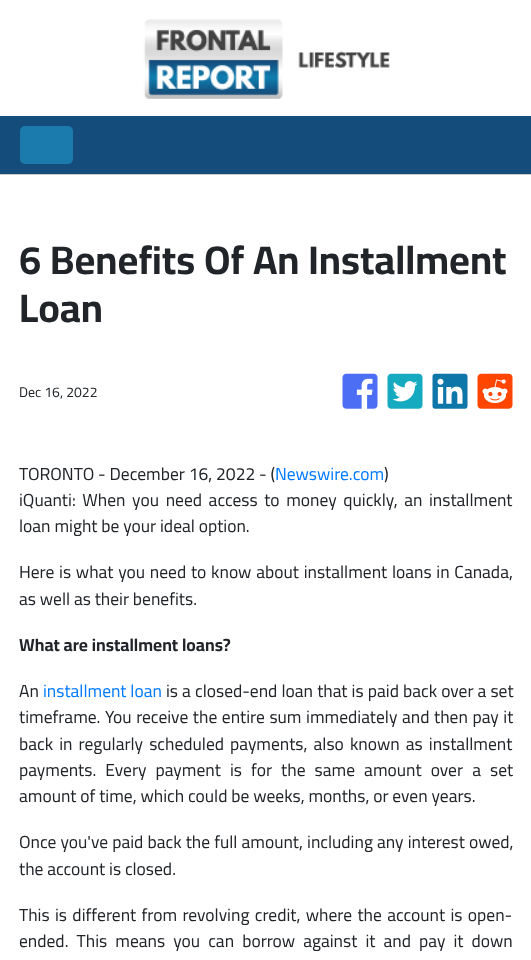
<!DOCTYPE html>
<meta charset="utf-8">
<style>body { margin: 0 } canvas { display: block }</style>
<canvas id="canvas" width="531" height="960"></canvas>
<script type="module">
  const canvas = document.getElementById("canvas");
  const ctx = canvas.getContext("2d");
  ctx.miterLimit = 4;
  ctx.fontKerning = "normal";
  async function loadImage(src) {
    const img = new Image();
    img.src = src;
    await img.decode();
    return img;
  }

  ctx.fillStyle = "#ffffff";
  ctx.fillRect(0, 0, 531, 960);
  ctx.drawImage(await loadImage("img1.png"), 143, 19, 247, 80);
  ctx.fillStyle = "#144d7b";
  ctx.fillRect(0, 116, 531, 58);
  ctx.fillStyle = "#cacaca";
  ctx.fillRect(0, 174, 531, 1);
  ctx.fillStyle = "#1c7bad";
  ctx.beginPath();
  ctx.roundRect(20, 126, 53, 38, 5);
  ctx.fill();
  ctx.font = "bold 40px Cairo";
  ctx.fillStyle = "#212529";
  ctx.fillText("6 Benefits Of An Installment", 19, 274);
  ctx.fillText("Loan", 19, 322);
  ctx.font = "14px Cairo";
  ctx.fillText("Dec 16, 2022", 19, 397);
  ctx.drawImage(await loadImage("img2.png"), 342, 373, 36, 36);
  ctx.drawImage(await loadImage("img3.png"), 387, 373, 36, 36);
  ctx.drawImage(await loadImage("img4.png"), 432, 373, 36, 36);
  ctx.drawImage(await loadImage("img5.png"), 477, 373, 36, 36);
  ctx.font = "17.5px Cairo";
  ctx.fillText("TORONTO - December 16, 2022 - (", 19, 480);
  ctx.fillStyle = "#007bff";
  ctx.fillText("Newswire.com", 275, 480);
  ctx.fillStyle = "#212529";
  ctx.fillText(")", 384, 480);
  ctx.wordSpacing = "2.75px";
  ctx.fillText("iQuanti: When you need access to money quickly, an installment", 19, 506);
  ctx.wordSpacing = "0px";
  ctx.fillText("loan might be your ideal option.", 19, 532);
  ctx.wordSpacing = "0.9px";
  ctx.fillText("Here is what you need to know about installment loans in Canada,", 19, 578);
  ctx.wordSpacing = "0px";
  ctx.fillText("as well as their benefits.", 19, 605);
  ctx.font = "bold 17.5px Cairo";
  ctx.fillText("What are installment loans?", 19, 651);
  ctx.font = "17.5px Cairo";
  ctx.fillText("An", 19, 697);
  ctx.fillStyle = "#007bff";
  ctx.fillText("installment loan", 43, 697);
  ctx.wordSpacing = "0.25px";
  ctx.fillStyle = "#212529";
  ctx.fillText("is a closed-end loan that is paid back over a set", 166, 697);
  ctx.wordSpacing = "0.75px";
  ctx.fillText("timeframe. You receive the entire sum immediately and then pay it", 19, 723);
  ctx.wordSpacing = "2.25px";
  ctx.fillText("back in regularly scheduled payments, also known as installment", 19, 750);
  ctx.wordSpacing = "5.25px";
  ctx.fillText("payments. Every payment is for the same amount over a set", 19, 776);
  ctx.wordSpacing = "0px";
  ctx.fillText("amount of time, which could be weeks, months, or even years.", 19, 802);
  ctx.wordSpacing = "0.25px";
  ctx.fillText("Once you've paid back the full amount, including any interest owed,", 19, 848);
  ctx.wordSpacing = "0px";
  ctx.fillText("the account is closed.", 19, 875);
  ctx.wordSpacing = "1.5px";
  ctx.fillText("This is different from revolving credit, where the account is open-", 19, 921);
  ctx.wordSpacing = "4.25px";
  ctx.fillText("ended. This means you can borrow against it and pay it down", 19, 947);
</script>
